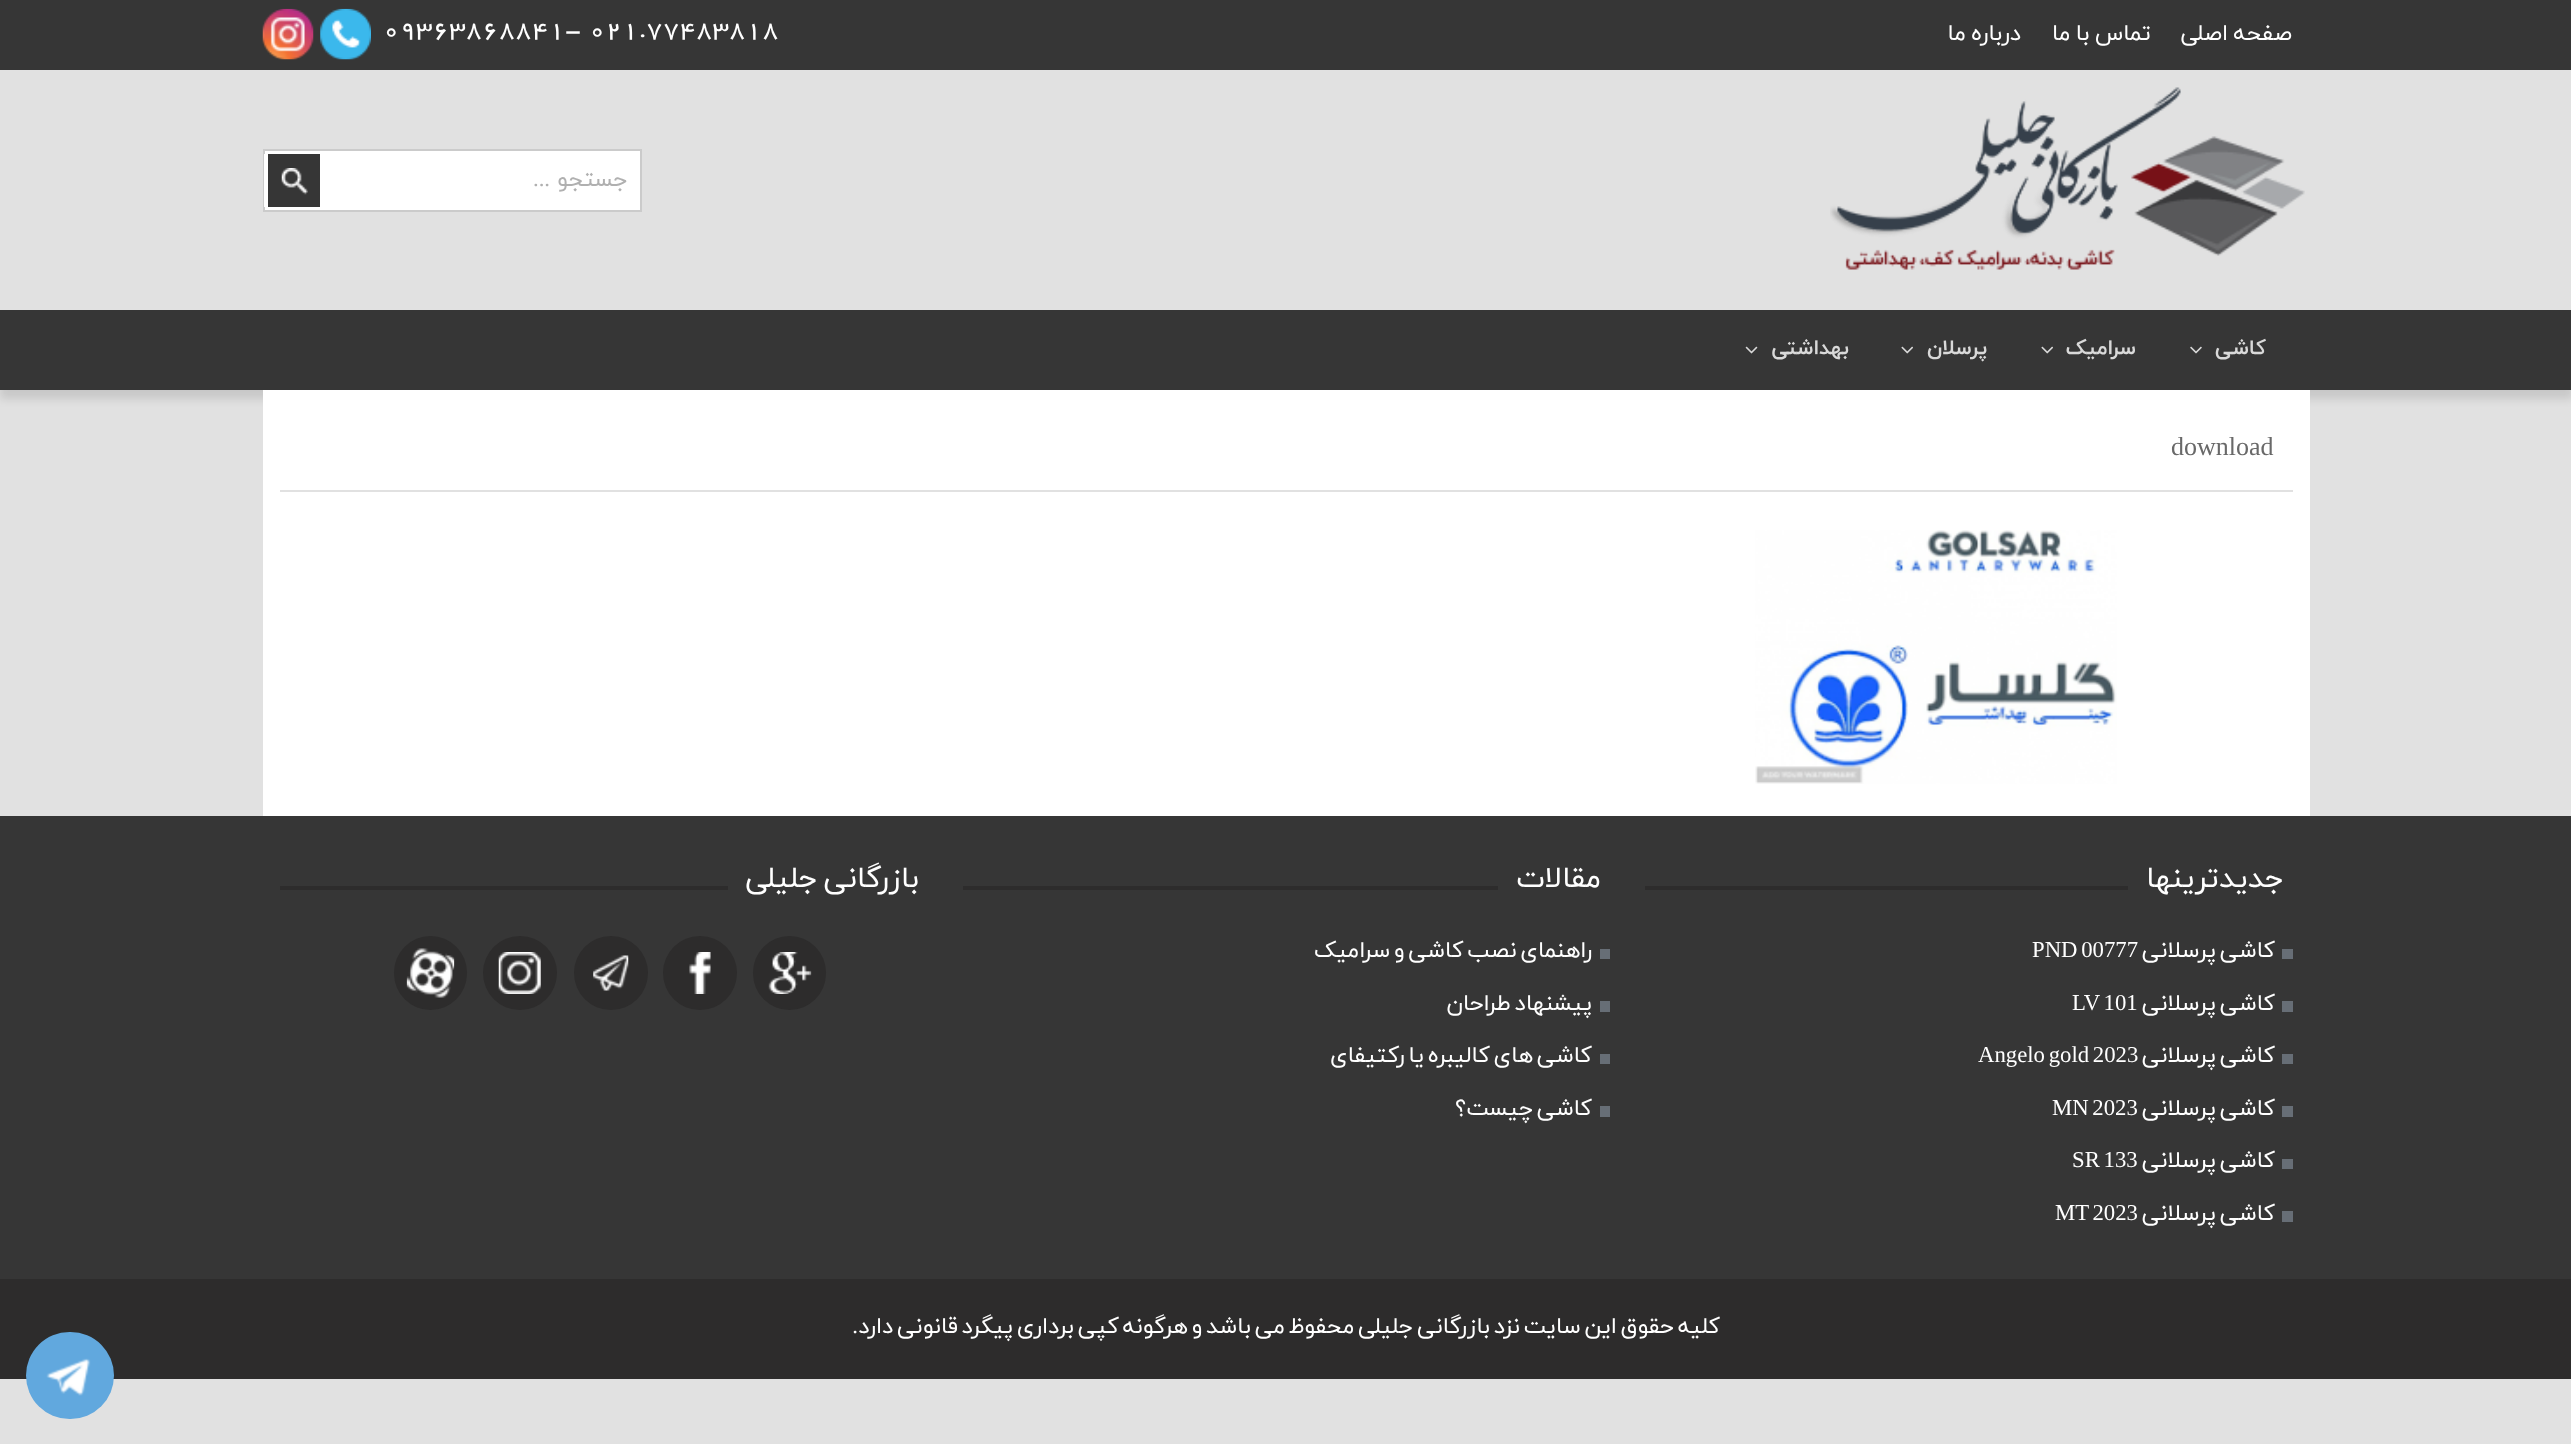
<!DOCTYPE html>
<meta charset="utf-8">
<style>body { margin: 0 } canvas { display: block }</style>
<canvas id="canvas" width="2571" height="1444"></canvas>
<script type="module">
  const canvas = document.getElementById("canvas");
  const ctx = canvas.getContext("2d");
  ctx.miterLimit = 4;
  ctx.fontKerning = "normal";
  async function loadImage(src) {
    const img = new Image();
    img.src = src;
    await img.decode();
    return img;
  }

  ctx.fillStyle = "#e1e1e1";
  ctx.fillRect(0, 0, 2571, 1444);
  ctx.fillStyle = "#363636";
  ctx.fillRect(0, 0, 2571, 70);
  ctx.wordSpacing = "-2px";
  ctx.direction = "rtl";
  ctx.font = "22.75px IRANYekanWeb";
  ctx.fillStyle = "#ffffff";
  ctx.fillText("صفحه اصلی", 2292, 40);
  ctx.fillText("تماس با ما", 2151, 40);
  ctx.fillText("درباره ما", 2021, 40);
  ctx.wordSpacing = "0px";
  ctx.direction = "ltr";
  ctx.font = "28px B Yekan";
  ctx.fillText("021.77483818", 589, 37);
  ctx.fillText("09363868841-", 383, 37);
  ctx.drawImage(await loadImage("img1.png"), 320, 8, 51, 52);
  ctx.drawImage(await loadImage("img2.png"), 262, 8, 52, 52);
  ctx.drawImage(await loadImage("img3.png"), 1830, 87, 475, 183);
  ctx.beginPath();
  ctx.rect(264, 150, 377, 61);
  ctx.fill();
  ctx.strokeStyle = "#cbcbcb";
  ctx.lineWidth = 2;
  ctx.stroke();
  ctx.fillRect(264, 154, 1, 53);
  ctx.direction = "rtl";
  ctx.font = "22.75px IRANYekanWeb";
  ctx.fillStyle = "#b0b0b0";
  ctx.fillText("جستجو", 628, 186);
  ctx.font = "22.75px Liberation Serif";
  ctx.fillText("...", 550, 186);
  ctx.fillStyle = "#363636";
  ctx.fillRect(268, 154, 52, 53);
  ctx.drawImage(await loadImage("img4.png"), 281, 168, 27, 27);
  ctx.fillStyle = "rgba(0, 0, 0, 0.11)";
  ctx.filter = "blur(4.5px)";
  ctx.beginPath();
  ctx.rect(0, 319, 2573, 80);
  ctx.fill();
  ctx.filter = "none";
  ctx.fillStyle = "#363636";
  ctx.fillRect(0, 310, 2571, 80);
  ctx.font = "bold 21px IRANYekanWeb";
  ctx.fillStyle = "#d9d9d9";
  ctx.fillText("کاشی", 2266, 354);
  ctx.drawImage(await loadImage("img5.png"), 2190, 346, 12, 8);
  ctx.fillText("سرامیک", 2136, 354);
  ctx.drawImage(await loadImage("img6.png"), 2041, 346, 12, 8);
  ctx.fillText("پرسلان", 1987, 354);
  ctx.drawImage(await loadImage("img6.png"), 1901, 346, 12, 8);
  ctx.fillText("بهداشتی", 1849, 354);
  ctx.drawImage(await loadImage("img7.png"), 1745, 346, 13, 8);
  ctx.fillStyle = "#ffffff";
  ctx.fillRect(263, 390, 2047, 426);
  ctx.fillStyle = "#e1e1e1";
  ctx.fillRect(280, 490, 2013, 2);
  ctx.direction = "ltr";
  ctx.font = "26px Liberation Serif";
  ctx.fillStyle = "#696969";
  ctx.fillText("download", 2171, 455);
  ctx.drawImage(await loadImage("img8.png"), 1755, 530, 362, 254);
  ctx.fillStyle = "#363636";
  ctx.fillRect(0, 816, 2571, 463);
  ctx.fillStyle = "#2d2c2c";
  ctx.fillRect(1645, 886, 483, 4);
  ctx.direction = "rtl";
  ctx.font = "29.75px IRANYekanWeb";
  ctx.fillStyle = "#ffffff";
  ctx.fillText("جدیدترینها", 2284, 887);
  ctx.fillStyle = "#676e76";
  ctx.fillRect(2282, 949, 11, 10);
  ctx.wordSpacing = "-3.5px";
  ctx.font = "22.75px IRANYekanWeb";
  ctx.fillStyle = "#ffffff";
  ctx.fillText("کاشی پرسلانی", 2275, 957);
  ctx.wordSpacing = "-2px";
  ctx.direction = "ltr";
  ctx.font = "22.75px Liberation Serif";
  ctx.fillText("PND 00777", 2032, 957);
  ctx.fillStyle = "#676e76";
  ctx.fillRect(2282, 1001, 11, 11);
  ctx.wordSpacing = "-3.5px";
  ctx.direction = "rtl";
  ctx.font = "22.75px IRANYekanWeb";
  ctx.fillStyle = "#ffffff";
  ctx.fillText("کاشی پرسلانی", 2275, 1010);
  ctx.wordSpacing = "-2px";
  ctx.direction = "ltr";
  ctx.font = "22.75px Liberation Serif";
  ctx.fillText("LV 101", 2072, 1010);
  ctx.fillStyle = "#676e76";
  ctx.fillRect(2282, 1054, 11, 10);
  ctx.wordSpacing = "-3.5px";
  ctx.direction = "rtl";
  ctx.font = "22.75px IRANYekanWeb";
  ctx.fillStyle = "#ffffff";
  ctx.fillText("کاشی پرسلانی", 2275, 1062);
  ctx.wordSpacing = "-2px";
  ctx.direction = "ltr";
  ctx.font = "22.75px Liberation Serif";
  ctx.fillText("Angelo gold 2023", 1978, 1062);
  ctx.fillStyle = "#676e76";
  ctx.fillRect(2282, 1106, 11, 11);
  ctx.wordSpacing = "-3.5px";
  ctx.direction = "rtl";
  ctx.font = "22.75px IRANYekanWeb";
  ctx.fillStyle = "#ffffff";
  ctx.fillText("کاشی پرسلانی", 2275, 1115);
  ctx.wordSpacing = "-2px";
  ctx.direction = "ltr";
  ctx.font = "22.75px Liberation Serif";
  ctx.fillText("MN 2023", 2052, 1115);
  ctx.fillStyle = "#676e76";
  ctx.fillRect(2282, 1159, 11, 10);
  ctx.wordSpacing = "-3.5px";
  ctx.direction = "rtl";
  ctx.font = "22.75px IRANYekanWeb";
  ctx.fillStyle = "#ffffff";
  ctx.fillText("کاشی پرسلانی", 2275, 1167);
  ctx.wordSpacing = "-2px";
  ctx.direction = "ltr";
  ctx.font = "22.75px Liberation Serif";
  ctx.fillText("SR 133", 2072, 1167);
  ctx.fillStyle = "#676e76";
  ctx.fillRect(2282, 1211, 11, 11);
  ctx.wordSpacing = "-3.5px";
  ctx.direction = "rtl";
  ctx.font = "22.75px IRANYekanWeb";
  ctx.fillStyle = "#ffffff";
  ctx.fillText("کاشی پرسلانی", 2275, 1220);
  ctx.wordSpacing = "-2px";
  ctx.direction = "ltr";
  ctx.font = "22.75px Liberation Serif";
  ctx.fillText("MT 2023", 2055, 1220);
  ctx.fillStyle = "#2d2c2c";
  ctx.fillRect(963, 886, 535, 4);
  ctx.wordSpacing = "0px";
  ctx.direction = "rtl";
  ctx.font = "29.75px IRANYekanWeb";
  ctx.fillStyle = "#ffffff";
  ctx.fillText("مقالات", 1601, 887);
  ctx.wordSpacing = "-3.5px";
  ctx.font = "22.75px IRANYekanWeb";
  ctx.fillText("راهنمای نصب کاشی و سرامیک", 1592, 957);
  ctx.fillStyle = "#676e76";
  ctx.fillRect(1600, 949, 10, 10);
  ctx.fillRect(1600, 1001, 10, 11);
  ctx.fillStyle = "#ffffff";
  ctx.fillText("پیشنهاد طراحان", 1592, 1010);
  ctx.fillText("کاشی های کالیبره یا رکتیفای", 1592, 1062);
  ctx.fillStyle = "#676e76";
  ctx.fillRect(1600, 1054, 10, 10);
  ctx.fillRect(1600, 1106, 10, 11);
  ctx.fillStyle = "#ffffff";
  ctx.fillText("کاشی چیست؟", 1592, 1115);
  ctx.fillStyle = "#2d2c2c";
  ctx.fillRect(280, 886, 448, 4);
  ctx.font = "29.75px IRANYekanWeb";
  ctx.fillStyle = "#ffffff";
  ctx.fillText("بازرگانی جلیلی", 919, 887);
  ctx.fillStyle = "#2d2c2c";
  ctx.beginPath();
  ctx.roundRect(753, 936, 73, 74, 36.5);
  ctx.fill();
  ctx.drawImage(await loadImage("img9.png"), 768, 952, 44, 42);
  ctx.beginPath();
  ctx.arc(700, 973, 37, 0, Math.PI * 2);
  ctx.fill();
  ctx.drawImage(await loadImage("img10.png"), 689, 952, 22, 42);
  ctx.beginPath();
  ctx.arc(611, 973, 37, 0, Math.PI * 2);
  ctx.fill();
  ctx.drawImage(await loadImage("img11.png"), 593, 955, 36, 36);
  ctx.beginPath();
  ctx.arc(520, 973, 37, 0, Math.PI * 2);
  ctx.fill();
  ctx.drawImage(await loadImage("img12.png"), 498, 952, 43, 42);
  ctx.beginPath();
  ctx.roundRect(394, 936, 73, 74, 36.5);
  ctx.fill();
  ctx.drawImage(await loadImage("img13.png"), 406, 948, 49, 50);
  ctx.fillRect(0, 1279, 2571, 100);
  ctx.font = "22.75px IRANYekanWeb";
  ctx.fillStyle = "#ffffff";
  ctx.fillText("کلیه حقوق این سایت نزد بازرگانی جلیلی محفوظ می باشد و هرگونه کپی برداری پیگرد قانونی دارد", 1720, 1333);
  ctx.wordSpacing = "0px";
  ctx.font = "22.75px Liberation Serif";
  ctx.fillText(".", 858, 1333);
  ctx.fillStyle = "#61a8de";
  ctx.beginPath();
  ctx.roundRect(26, 1332, 88, 87, 43.5);
  ctx.fill();
  ctx.drawImage(await loadImage("img14.png"), 46, 1358, 45, 38);
</script>
